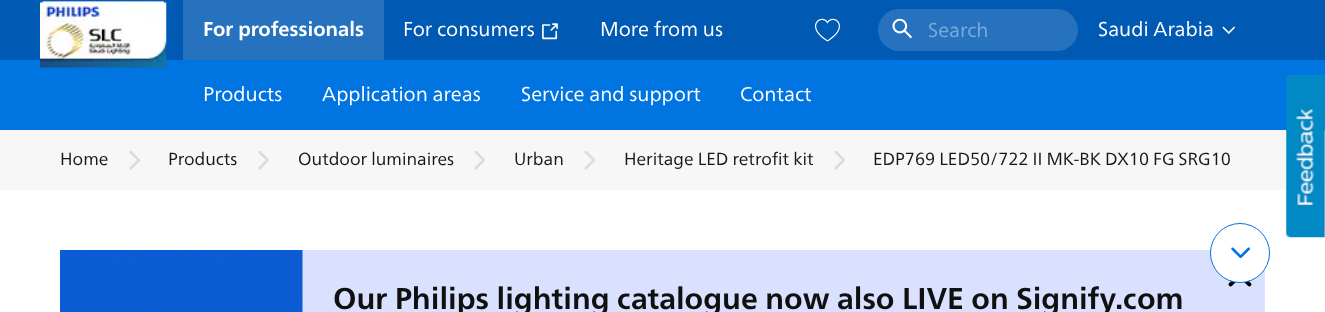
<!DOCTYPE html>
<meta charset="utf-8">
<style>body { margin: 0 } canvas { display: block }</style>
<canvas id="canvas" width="1325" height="312"></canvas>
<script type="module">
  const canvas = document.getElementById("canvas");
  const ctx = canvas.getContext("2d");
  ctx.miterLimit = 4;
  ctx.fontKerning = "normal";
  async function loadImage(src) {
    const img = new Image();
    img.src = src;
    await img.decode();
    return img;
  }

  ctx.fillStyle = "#ffffff";
  ctx.fillRect(0, 0, 1325, 312);
  ctx.fillStyle = "#0059b3";
  ctx.fillRect(0, 0, 1325, 60);
  ctx.fillStyle = "#0074e0";
  ctx.fillRect(0, 60, 1325, 70);
  ctx.drawImage(await loadImage("img1.png"), 40, 0, 127, 68);
  ctx.fillStyle = "#2672be";
  ctx.fillRect(183, 0, 201, 60);
  ctx.font = "bold 20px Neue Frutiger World";
  ctx.fillStyle = "#ffffff";
  ctx.fillText("For professionals", 203, 36);
  ctx.font = "20px Neue Frutiger World";
  ctx.fillText("For consumers", 403, 36);
  ctx.drawImage(await loadImage("img2.png"), 542, 23, 16, 17);
  ctx.fillText("More from us", 600, 36);
  ctx.drawImage(await loadImage("img3.png"), 815, 18, 25, 24);
  ctx.fillStyle = "#2672be";
  ctx.beginPath();
  ctx.roundRect(878, 9, 200, 42, 21);
  ctx.fill();
  ctx.drawImage(await loadImage("img4.png"), 892, 18, 20, 21);
  ctx.fillStyle = "#7daad8";
  ctx.fillText("Search", 928, 37);
  ctx.fillStyle = "#ffffff";
  ctx.fillText("Saudi Arabia", 1098, 36);
  ctx.drawImage(await loadImage("img5.png"), 1222, 26, 13, 8);
  ctx.fillText("Products", 203, 101);
  ctx.fillText("Application areas", 322, 101);
  ctx.fillText("Service and support", 521, 101);
  ctx.fillText("Contact", 740, 101);
  ctx.fillStyle = "#f7f7f7";
  ctx.fillRect(0, 130, 1325, 60);
  ctx.font = "17.5px Neue Frutiger World";
  ctx.fillStyle = "#171717";
  ctx.fillText("Home", 60, 165);
  ctx.drawImage(await loadImage("img6.png"), 129, 150, 11, 20);
  ctx.fillText("Products", 168, 165);
  ctx.drawImage(await loadImage("img7.png"), 258, 150, 11, 20);
  ctx.fillText("Outdoor luminaires", 298, 165);
  ctx.drawImage(await loadImage("img6.png"), 474, 150, 11, 20);
  ctx.fillText("Urban", 514, 165);
  ctx.drawImage(await loadImage("img6.png"), 584, 150, 11, 20);
  ctx.fillText("Heritage LED retrofit kit", 624, 165);
  ctx.drawImage(await loadImage("img6.png"), 834, 150, 11, 20);
  ctx.fillText("EDP769 LED50/722 II MK-BK DX10 FG SRG10", 873, 165);
  ctx.fillStyle = "#dae1ff";
  ctx.fillRect(302, 250, 963, 62);
  ctx.drawImage(await loadImage("img10.png"), 1228, 281, 24, 6);
  ctx.fillStyle = "#ffffff";
  ctx.beginPath();
  ctx.arc(1240, 253, 29.5, 0, Math.PI * 2);
  ctx.fill();
  ctx.strokeStyle = "#0074e0";
  ctx.stroke();
  ctx.drawImage(await loadImage("img8.png"), 1231, 247, 19, 11);
  ctx.drawImage(await loadImage("img9.png"), 60, 250, 243, 62);
  ctx.font = "bold 30px Neue Frutiger World";
  ctx.fillStyle = "#101010";
  ctx.fillText("Our Philips lighting catalogue now also LIVE on Signify.com", 333, 309);
  ctx.drawImage(await loadImage("img11.png"), 1286, 75, 39, 163);
</script>
